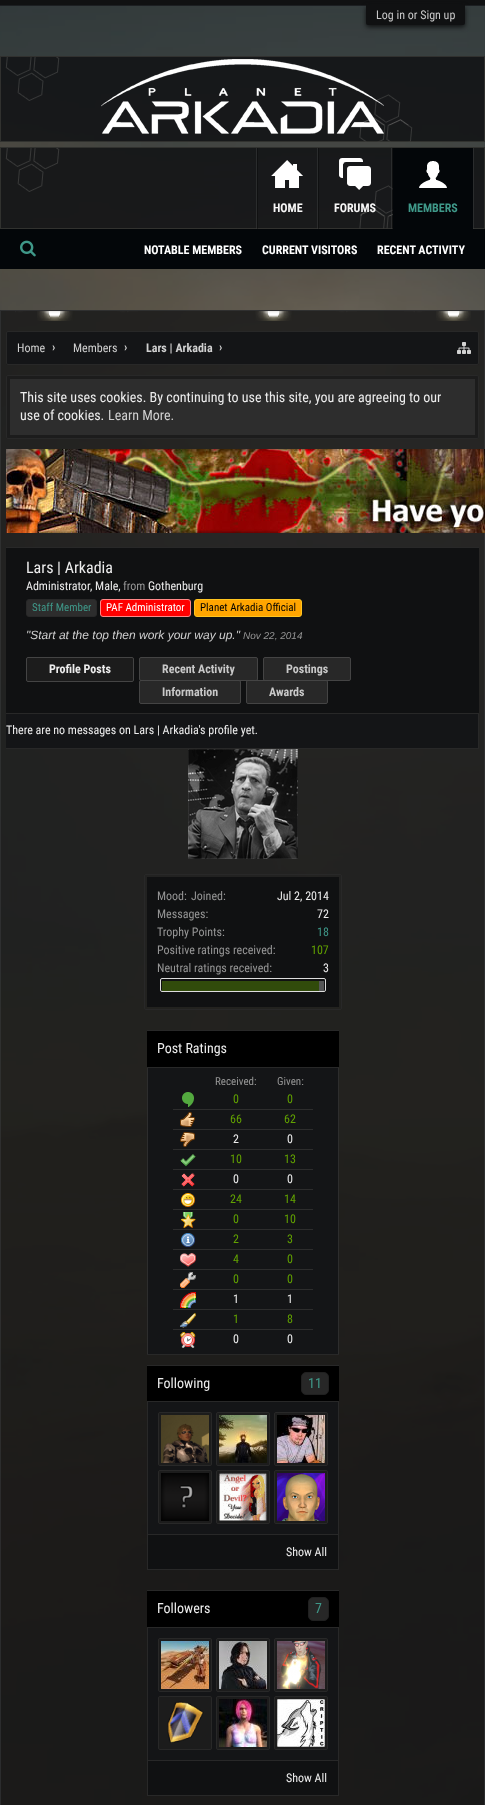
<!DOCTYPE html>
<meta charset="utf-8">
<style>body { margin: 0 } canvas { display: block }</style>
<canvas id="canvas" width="485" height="1805"></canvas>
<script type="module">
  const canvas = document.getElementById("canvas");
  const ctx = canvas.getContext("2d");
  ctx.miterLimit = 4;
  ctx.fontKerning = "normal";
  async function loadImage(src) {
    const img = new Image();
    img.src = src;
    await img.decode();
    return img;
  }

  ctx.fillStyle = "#151515";
  ctx.fillRect(0, 0, 485, 1805);
  ctx.drawImage(await loadImage("img1.png"), 0, 6, 485, 1799);
  ctx.fillStyle = "#101112";
  ctx.fillRect(0, 0, 485, 5);
  ctx.fillStyle = "#1c1f22";
  ctx.fillRect(0, 5, 485, 1);
  ctx.fillStyle = "#101112";
  ctx.filter = "blur(2.5px)";
  ctx.beginPath();
  ctx.roundRect(366, 7, 99, 20, 2);
  ctx.fill();
  ctx.filter = "none";
  ctx.beginPath();
  ctx.roundRect(366, 5, 99, 20, [0, 0, 2, 2]);
  ctx.fill();
  ctx.font = "12px Roboto Condensed";
  ctx.fillStyle = "#c8c8c8";
  ctx.fillText("Log in or Sign up", 376, 19);
  ctx.fillStyle = "rgba(19, 20, 22, 0.9)";
  ctx.fillRect(0, 56, 485, 86);
  ctx.drawImage(await loadImage("img2.png"), 5, 57, 408, 85);
  ctx.strokeStyle = "rgba(56, 56, 53, 0.8)";
  ctx.strokeRect(0.5, 56.5, 484, 85);
  ctx.drawImage(await loadImage("img3.png"), 101, 59, 283, 75);
  ctx.fillStyle = "#030609";
  ctx.fillRect(0, 229, 485, 40);
  ctx.drawImage(await loadImage("img4.png"), 20, 240, 16, 17);
  ctx.fillStyle = "rgba(19, 20, 22, 0.9)";
  ctx.fillRect(0, 147, 485, 82);
  ctx.drawImage(await loadImage("img5.png"), 5, 148, 388, 81);
  ctx.strokeRect(0.5, 147.5, 484, 81);
  ctx.fillStyle = "rgba(59, 62, 64, 0.52)";
  ctx.fillRect(256, 148, 1, 81);
  ctx.fillRect(473, 148, 1, 81);
  ctx.fillStyle = "rgba(0, 0, 0, 0.3)";
  ctx.fillRect(392, 148, 1, 81);
  ctx.fillStyle = "#030609";
  ctx.fillRect(393, 148, 80, 81);
  ctx.drawImage(await loadImage("img6.png"), 419, 161, 28, 27);
  ctx.font = "bold 12px Roboto Condensed";
  ctx.fillStyle = "#3f9889";
  ctx.fillText("MEMBERS", 408, 212);
  ctx.fillStyle = "#ffffff";
  ctx.fillText("NOTABLE MEMBERS", 144, 254);
  ctx.fillText("CURRENT VISITORS", 262, 254);
  ctx.fillText("RECENT ACTIVITY", 377, 254);
  ctx.fillStyle = "rgba(59, 62, 64, 0.52)";
  ctx.fillRect(317, 148, 1, 81);
  ctx.fillStyle = "rgba(0, 0, 0, 0.3)";
  ctx.fillRect(257, 148, 1, 81);
  ctx.drawImage(await loadImage("img7.png"), 271, 160, 32, 28);
  ctx.fillStyle = "#f7f7f7";
  ctx.fillText("HOME", 273, 212);
  ctx.fillStyle = "rgba(59, 62, 64, 0.52)";
  ctx.fillRect(391, 148, 1, 81);
  ctx.fillStyle = "rgba(0, 0, 0, 0.3)";
  ctx.fillRect(318, 148, 1, 81);
  ctx.drawImage(await loadImage("img8.png"), 339, 158, 32, 32);
  ctx.fillStyle = "#f7f7f7";
  ctx.fillText("FORUMS", 334, 212);
  ctx.fillStyle = "rgba(26, 26, 26, 0.85)";
  ctx.fillRect(0, 310, 485, 1495);
  ctx.drawImage(await loadImage("img9.png"), 15, 311, 456, 10);
  ctx.strokeStyle = "rgba(59, 62, 64, 0.52)";
  ctx.strokeRect(0.5, 310.5, 484, 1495);
  ctx.fillStyle = "#141517";
  ctx.beginPath();
  ctx.roundRect(6.5, 331.5, 472, 33, 1.5);
  ctx.fill();
  ctx.strokeStyle = "#282828";
  ctx.stroke();
  ctx.font = "12px Roboto Condensed";
  ctx.fillStyle = "#d0d0d0";
  ctx.fillText("Home", 17, 352);
  ctx.font = "bold 12px Roboto Condensed";
  ctx.fillText("›", 52, 351);
  ctx.font = "12px Roboto Condensed";
  ctx.fillText("Members", 73, 352);
  ctx.font = "bold 12px Roboto Condensed";
  ctx.fillText("›", 124, 351);
  ctx.fillText("Lars | Arkadia", 146, 352);
  ctx.fillText("›", 219, 351);
  ctx.drawImage(await loadImage("img10.png"), 457, 342, 14, 12);
  ctx.fillStyle = "#1c1c1c";
  ctx.beginPath();
  ctx.roundRect(6.5, 375.5, 472, 63, 1.5);
  ctx.fill();
  ctx.stroke();
  ctx.fillStyle = "#2d2d2d";
  ctx.fillRect(10, 379, 465, 56);
  ctx.font = "14px Roboto Condensed";
  ctx.fillStyle = "#ededed";
  ctx.fillText("This site uses cookies. By continuing to use this site, you are agreeing to our", 20, 402);
  ctx.fillText("use of cookies.", 20, 420);
  ctx.fillStyle = "#d0d0d0";
  ctx.fillText("Learn More.", 108, 420);
  ctx.drawImage(await loadImage("img11.png"), 6, 449, 479, 84);
  ctx.fillStyle = "#282828";
  ctx.fillRect(6, 547, 473, 1);
  ctx.fillStyle = "#101112";
  ctx.fillRect(6, 548, 473, 165);
  ctx.font = "16px Roboto Condensed";
  ctx.fillStyle = "#ededed";
  ctx.fillText("Lars | Arkadia", 26, 573);
  ctx.font = "12px Roboto Condensed";
  ctx.fillText("Administrator", 26, 590);
  ctx.fillText(", Male,", 90, 590);
  ctx.fillStyle = "#969696";
  ctx.fillText("from", 123, 590);
  ctx.fillStyle = "#ededed";
  ctx.fillText("Gothenburg", 148, 590);
  ctx.fillStyle = "#2d2d2d";
  ctx.beginPath();
  ctx.roundRect(26.5, 599.5, 70, 17, 2.5);
  ctx.fill();
  ctx.stroke();
  ctx.font = "11px Roboto Condensed";
  ctx.fillStyle = "#3f9889";
  ctx.fillText("Staff Member", 32, 611);
  ctx.fillStyle = "#ff0000";
  ctx.beginPath();
  ctx.roundRect(100.5, 599.5, 90, 17, 2.5);
  ctx.fill();
  ctx.strokeStyle = "#ff8888";
  ctx.stroke();
  ctx.fillStyle = "#ffffff";
  ctx.fillText("PAF Administrator", 106, 611);
  ctx.fillStyle = "#ffa500";
  ctx.beginPath();
  ctx.roundRect(194.5, 599.5, 107, 17, 2.5);
  ctx.fill();
  ctx.strokeStyle = "#ffc520";
  ctx.stroke();
  ctx.fillStyle = "#000000";
  ctx.fillText("Planet Arkadia Official", 200, 611);
  ctx.font = "italic 12px Liberation Sans";
  ctx.fillStyle = "#d0d0d0";
  ctx.fillText("\"Start at the top then work your way up.\"", 26, 639);
  ctx.font = "italic 10px Liberation Sans";
  ctx.fillStyle = "#969696";
  ctx.fillText("Nov 22, 2014", 243, 639);
  ctx.fillStyle = "#282828";
  ctx.fillRect(478, 713, 1, 36);
  ctx.fillRect(6, 713, 473, 1);
  ctx.fillStyle = "#1c1c1c";
  ctx.beginPath();
  ctx.roundRect(26.5, 657.5, 107, 24, 1.5);
  ctx.fill();
  ctx.strokeStyle = "#444444";
  ctx.stroke();
  ctx.font = "bold 12px Roboto Condensed";
  ctx.fillStyle = "#ededed";
  ctx.fillText("Profile Posts", 49, 673);
  ctx.fillStyle = "#282828";
  ctx.beginPath();
  ctx.roundRect(139.5, 657.5, 118, 23, 1.5);
  ctx.fill();
  ctx.stroke();
  ctx.fillStyle = "#c8c8c8";
  ctx.fillText("Recent Activity", 162, 673);
  ctx.fillStyle = "#282828";
  ctx.beginPath();
  ctx.roundRect(263.5, 657.5, 87, 23, 1.5);
  ctx.fill();
  ctx.stroke();
  ctx.fillStyle = "#c8c8c8";
  ctx.fillText("Postings", 286, 673);
  ctx.fillStyle = "#282828";
  ctx.beginPath();
  ctx.roundRect(139.5, 680.5, 101, 23, 1.5);
  ctx.fill();
  ctx.stroke();
  ctx.fillStyle = "#c8c8c8";
  ctx.fillText("Information", 162, 696);
  ctx.fillStyle = "#282828";
  ctx.beginPath();
  ctx.roundRect(246.5, 680.5, 81, 23, 1.5);
  ctx.fill();
  ctx.stroke();
  ctx.fillStyle = "#c8c8c8";
  ctx.fillText("Awards", 269, 696);
  ctx.fillStyle = "#141517";
  ctx.fillRect(6, 714, 472, 34);
  ctx.fillStyle = "#282828";
  ctx.fillRect(6, 748, 473, 1);
  ctx.font = "12px Roboto Condensed";
  ctx.fillStyle = "#ededed";
  ctx.fillText("There are no messages on Lars | Arkadia's profile yet.", 6, 734);
  ctx.drawImage(await loadImage("img12.png"), 188, 749, 110, 110);
  ctx.beginPath();
  ctx.roundRect(144.5, 874.5, 197, 135, 1.5);
  ctx.strokeStyle = "#282828";
  ctx.stroke();
  ctx.fillStyle = "#101112";
  ctx.fillRect(147, 877, 192, 130);
  ctx.fillStyle = "#969696";
  ctx.fillText("Mood:", 157, 900);
  ctx.fillText("Joined:", 191, 900);
  ctx.fillStyle = "#ededed";
  ctx.fillText("Jul 2, 2014", 277, 900);
  ctx.fillStyle = "#969696";
  ctx.fillText("Messages:", 157, 918);
  ctx.fillStyle = "#ededed";
  ctx.fillText("72", 317, 918);
  ctx.fillStyle = "#969696";
  ctx.fillText("Trophy Points:", 157, 936);
  ctx.fillStyle = "#3f9889";
  ctx.fillText("18", 317, 936);
  ctx.fillStyle = "#969696";
  ctx.fillText("Positive ratings received:", 157, 954);
  ctx.fillStyle = "#62a201";
  ctx.fillText("107", 311, 954);
  ctx.fillStyle = "#969696";
  ctx.fillText("Neutral ratings received:", 157, 972);
  ctx.fillStyle = "#ededed";
  ctx.fillText("3", 323, 972);
  ctx.beginPath();
  ctx.roundRect(160.5, 978.5, 165, 13, 1.5);
  ctx.strokeStyle = "#dddddd";
  ctx.stroke();
  ctx.fillStyle = "#314b0b";
  ctx.fillRect(162, 981, 157, 10);
  ctx.fillStyle = "#545556";
  ctx.fillRect(319, 981, 5, 10);
  ctx.fillStyle = "#000000";
  ctx.fillRect(147, 1031, 192, 36);
  ctx.fillStyle = "#282828";
  ctx.fillRect(147, 1030, 192, 1);
  ctx.fillRect(147, 1067, 192, 1);
  ctx.font = "14px Roboto Condensed";
  ctx.fillStyle = "#ededed";
  ctx.fillText("Post Ratings", 157, 1053);
  ctx.fillStyle = "#141517";
  ctx.fillRect(148, 1068, 190, 286);
  ctx.fillStyle = "#282828";
  ctx.fillRect(147, 1354, 192, 1);
  ctx.fillStyle = "#2d2d2d";
  ctx.fillRect(338, 1068, 1, 286);
  ctx.fillRect(147, 1068, 1, 286);
  ctx.font = "11px Roboto Condensed";
  ctx.fillStyle = "#969696";
  ctx.fillText("Received:", 215, 1085);
  ctx.fillText("Given:", 277, 1085);
  ctx.drawImage(await loadImage("img13.png"), 182, 1092, 12, 15);
  ctx.font = "12px Roboto Condensed";
  ctx.fillStyle = "#62a201";
  ctx.fillText("0", 233, 1103);
  ctx.fillText("0", 287, 1103);
  ctx.fillStyle = "#2d2d2d";
  ctx.fillRect(173, 1109, 140, 1);
  ctx.drawImage(await loadImage("img14.png"), 180, 1112, 15, 15);
  ctx.fillStyle = "#62a201";
  ctx.fillText("66", 230, 1123);
  ctx.fillText("62", 284, 1123);
  ctx.fillStyle = "#2d2d2d";
  ctx.fillRect(173, 1129, 140, 1);
  ctx.drawImage(await loadImage("img15.png"), 180, 1132, 15, 15);
  ctx.fillStyle = "#ededed";
  ctx.fillText("2", 233, 1143);
  ctx.fillText("0", 287, 1143);
  ctx.fillStyle = "#2d2d2d";
  ctx.fillRect(173, 1149, 140, 1);
  ctx.drawImage(await loadImage("img16.png"), 180, 1154, 16, 13);
  ctx.fillStyle = "#62a201";
  ctx.fillText("10", 230, 1163);
  ctx.fillText("13", 284, 1163);
  ctx.fillStyle = "#2d2d2d";
  ctx.fillRect(173, 1169, 140, 1);
  ctx.drawImage(await loadImage("img17.png"), 181, 1172, 14, 15);
  ctx.fillStyle = "#ededed";
  ctx.fillText("0", 233, 1183);
  ctx.fillText("0", 287, 1183);
  ctx.fillStyle = "#2d2d2d";
  ctx.fillRect(173, 1189, 140, 1);
  ctx.drawImage(await loadImage("img18.png"), 181, 1193, 14, 14);
  ctx.fillStyle = "#62a201";
  ctx.fillText("24", 230, 1203);
  ctx.fillText("14", 284, 1203);
  ctx.fillStyle = "#2d2d2d";
  ctx.fillRect(173, 1209, 140, 1);
  ctx.drawImage(await loadImage("img19.png"), 181, 1212, 15, 16);
  ctx.fillStyle = "#62a201";
  ctx.fillText("0", 233, 1223);
  ctx.fillText("10", 284, 1223);
  ctx.fillStyle = "#2d2d2d";
  ctx.fillRect(173, 1229, 140, 1);
  ctx.drawImage(await loadImage("img20.png"), 181, 1233, 14, 14);
  ctx.fillStyle = "#62a201";
  ctx.fillText("2", 233, 1243);
  ctx.fillText("3", 287, 1243);
  ctx.fillStyle = "#2d2d2d";
  ctx.fillRect(173, 1249, 140, 1);
  ctx.drawImage(await loadImage("img21.png"), 180, 1253, 16, 14);
  ctx.fillStyle = "#62a201";
  ctx.fillText("4", 233, 1263);
  ctx.fillText("0", 287, 1263);
  ctx.fillStyle = "#2d2d2d";
  ctx.fillRect(173, 1269, 140, 1);
  ctx.drawImage(await loadImage("img22.png"), 180, 1272, 16, 16);
  ctx.fillStyle = "#62a201";
  ctx.fillText("0", 233, 1283);
  ctx.fillText("0", 287, 1283);
  ctx.fillStyle = "#2d2d2d";
  ctx.fillRect(173, 1289, 140, 1);
  ctx.drawImage(await loadImage("img23.png"), 180, 1292, 16, 16);
  ctx.fillStyle = "#ededed";
  ctx.fillText("1", 233, 1303);
  ctx.fillText("1", 287, 1303);
  ctx.fillStyle = "#2d2d2d";
  ctx.fillRect(173, 1309, 140, 1);
  ctx.drawImage(await loadImage("img24.png"), 180, 1313, 16, 15);
  ctx.fillStyle = "#62a201";
  ctx.fillText("1", 233, 1323);
  ctx.fillText("8", 287, 1323);
  ctx.fillStyle = "#2d2d2d";
  ctx.fillRect(173, 1329, 140, 1);
  ctx.drawImage(await loadImage("img25.png"), 180, 1332, 16, 16);
  ctx.fillStyle = "#ededed";
  ctx.fillText("0", 233, 1343);
  ctx.fillText("0", 287, 1343);
  ctx.fillStyle = "#000000";
  ctx.fillRect(147, 1366, 192, 35);
  ctx.fillStyle = "#282828";
  ctx.fillRect(147, 1365, 192, 1);
  ctx.fillRect(147, 1401, 192, 1);
  ctx.font = "14px Roboto Condensed";
  ctx.fillStyle = "#ededed";
  ctx.fillText("Following", 157, 1388);
  ctx.fillStyle = "#272727";
  ctx.beginPath();
  ctx.roundRect(301.5, 1372.5, 27, 22, 4.5);
  ctx.fill();
  ctx.strokeStyle = "#202020";
  ctx.stroke();
  ctx.fillStyle = "#3f9889";
  ctx.fillText("11", 308, 1388);
  ctx.fillStyle = "#141517";
  ctx.fillRect(148, 1402, 190, 132);
  ctx.fillStyle = "#282828";
  ctx.fillRect(338, 1402, 1, 168);
  ctx.fillRect(147, 1534, 192, 1);
  ctx.fillRect(147, 1402, 1, 133);
  ctx.fillStyle = "#1c1c1c";
  ctx.beginPath();
  ctx.roundRect(158, 1412, 54, 54, 2);
  ctx.fill();
  ctx.drawImage(await loadImage("img26.png"), 161, 1415, 48, 48);
  ctx.beginPath();
  ctx.roundRect(158.5, 1412.5, 53, 53, 1.5);
  ctx.strokeStyle = "#282828";
  ctx.stroke();
  ctx.beginPath();
  ctx.roundRect(216, 1412, 54, 54, 2);
  ctx.fill();
  ctx.drawImage(await loadImage("img27.png"), 219, 1415, 48, 48);
  ctx.beginPath();
  ctx.roundRect(216.5, 1412.5, 53, 53, 1.5);
  ctx.stroke();
  ctx.beginPath();
  ctx.roundRect(274, 1412, 54, 54, 2);
  ctx.fill();
  ctx.drawImage(await loadImage("img28.png"), 277, 1415, 48, 48);
  ctx.beginPath();
  ctx.roundRect(274.5, 1412.5, 53, 53, 1.5);
  ctx.stroke();
  ctx.beginPath();
  ctx.roundRect(158, 1470, 54, 54, 2);
  ctx.fill();
  ctx.drawImage(await loadImage("img29.png"), 161, 1473, 48, 48);
  ctx.beginPath();
  ctx.roundRect(158.5, 1470.5, 53, 53, 1.5);
  ctx.stroke();
  ctx.beginPath();
  ctx.roundRect(216, 1470, 54, 54, 2);
  ctx.fill();
  ctx.drawImage(await loadImage("img30.png"), 219, 1473, 48, 48);
  ctx.beginPath();
  ctx.roundRect(216.5, 1470.5, 53, 53, 1.5);
  ctx.stroke();
  ctx.beginPath();
  ctx.roundRect(274, 1470, 54, 54, 2);
  ctx.fill();
  ctx.drawImage(await loadImage("img31.png"), 277, 1473, 48, 48);
  ctx.beginPath();
  ctx.roundRect(274.5, 1470.5, 53, 53, 1.5);
  ctx.stroke();
  ctx.fillStyle = "#101112";
  ctx.fillRect(148, 1535, 190, 34);
  ctx.fillStyle = "#282828";
  ctx.fillRect(147, 1569, 192, 1);
  ctx.fillRect(147, 1535, 1, 35);
  ctx.font = "12px Roboto Condensed";
  ctx.fillStyle = "#ededed";
  ctx.fillText("Show All", 286, 1556);
  ctx.fillStyle = "#000000";
  ctx.fillRect(147, 1591, 192, 36);
  ctx.fillStyle = "#282828";
  ctx.fillRect(147, 1590, 192, 1);
  ctx.fillRect(147, 1627, 192, 1);
  ctx.font = "14px Roboto Condensed";
  ctx.fillStyle = "#ededed";
  ctx.fillText("Followers", 157, 1613);
  ctx.fillStyle = "#272727";
  ctx.beginPath();
  ctx.roundRect(308.5, 1597.5, 20, 23, 4.5);
  ctx.fill();
  ctx.strokeStyle = "#202020";
  ctx.stroke();
  ctx.fillStyle = "#3f9889";
  ctx.fillText("7", 315, 1613);
  ctx.fillStyle = "#141517";
  ctx.fillRect(148, 1628, 190, 132);
  ctx.fillStyle = "#282828";
  ctx.fillRect(338, 1628, 1, 168);
  ctx.fillRect(147, 1760, 192, 1);
  ctx.fillRect(147, 1628, 1, 133);
  ctx.fillStyle = "#1c1c1c";
  ctx.beginPath();
  ctx.roundRect(158, 1638, 54, 54, 2);
  ctx.fill();
  ctx.drawImage(await loadImage("img32.png"), 161, 1641, 48, 48);
  ctx.beginPath();
  ctx.roundRect(158.5, 1638.5, 53, 53, 1.5);
  ctx.strokeStyle = "#282828";
  ctx.stroke();
  ctx.beginPath();
  ctx.roundRect(216, 1638, 54, 54, 2);
  ctx.fill();
  ctx.drawImage(await loadImage("img33.png"), 219, 1641, 48, 48);
  ctx.beginPath();
  ctx.roundRect(216.5, 1638.5, 53, 53, 1.5);
  ctx.stroke();
  ctx.beginPath();
  ctx.roundRect(274, 1638, 54, 54, 2);
  ctx.fill();
  ctx.drawImage(await loadImage("img34.png"), 277, 1641, 48, 48);
  ctx.beginPath();
  ctx.roundRect(274.5, 1638.5, 53, 53, 1.5);
  ctx.stroke();
  ctx.beginPath();
  ctx.roundRect(158, 1696, 54, 54, 2);
  ctx.fill();
  ctx.drawImage(await loadImage("img35.png"), 167, 1701, 37, 42);
  ctx.beginPath();
  ctx.roundRect(158.5, 1696.5, 53, 53, 1.5);
  ctx.stroke();
  ctx.beginPath();
  ctx.roundRect(216, 1696, 54, 54, 2);
  ctx.fill();
  ctx.drawImage(await loadImage("img36.png"), 219, 1699, 48, 48);
  ctx.beginPath();
  ctx.roundRect(216.5, 1696.5, 53, 53, 1.5);
  ctx.stroke();
  ctx.beginPath();
  ctx.roundRect(274, 1696, 54, 54, 2);
  ctx.fill();
  ctx.drawImage(await loadImage("img37.png"), 277, 1699, 48, 48);
  ctx.beginPath();
  ctx.roundRect(274.5, 1696.5, 53, 53, 1.5);
  ctx.stroke();
  ctx.fillStyle = "#101112";
  ctx.fillRect(148, 1761, 190, 34);
  ctx.fillStyle = "#282828";
  ctx.fillRect(147, 1795, 192, 1);
  ctx.fillRect(147, 1761, 1, 35);
  ctx.font = "12px Roboto Condensed";
  ctx.fillStyle = "#ededed";
  ctx.fillText("Show All", 286, 1782);
</script>
